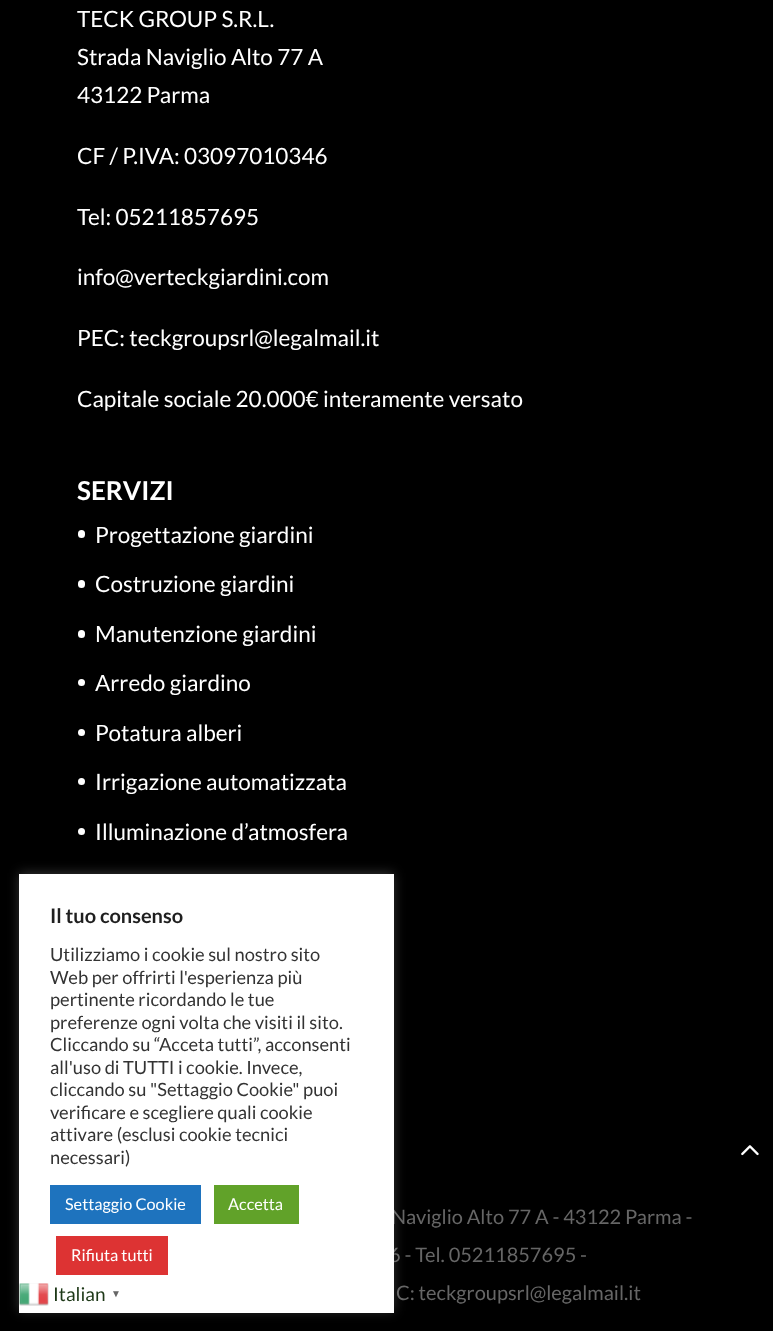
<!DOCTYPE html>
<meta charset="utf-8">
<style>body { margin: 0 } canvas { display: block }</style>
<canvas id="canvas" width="773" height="1331"></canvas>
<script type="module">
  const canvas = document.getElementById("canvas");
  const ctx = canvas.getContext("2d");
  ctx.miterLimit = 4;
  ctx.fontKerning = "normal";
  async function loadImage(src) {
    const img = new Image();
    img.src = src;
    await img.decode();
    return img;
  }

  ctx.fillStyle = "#000000";
  ctx.fillRect(0, 0, 773, 1331);
  ctx.font = "22.5px Lato";
  ctx.fillStyle = "#ffffff";
  ctx.fillText("TECK GROUP S.R.L.", 77, 27);
  ctx.fillText("Strada Naviglio Alto 77 A", 77, 65);
  ctx.fillText("43122 Parma", 77, 103);
  ctx.fillText("CF / P.IVA: 03097010346", 77, 164);
  ctx.fillText("Tel: 05211857695", 77, 225);
  ctx.fillText("info@verteckgiardini.com", 77, 285);
  ctx.fillText("PEC: teckgroupsrl@legalmail.it", 77, 346);
  ctx.fillText("Capitale sociale 20.000€ interamente versato", 77, 407);
  ctx.font = "bold 26px Lato";
  ctx.fillText("SERVIZI", 77, 500);
  ctx.beginPath();
  ctx.roundRect(78, 530, 7, 8, 3.5);
  ctx.fill();
  ctx.font = "22.5px Lato";
  ctx.fillText("Progettazione giardini", 95, 543);
  ctx.beginPath();
  ctx.roundRect(78, 580, 7, 8, 3.5);
  ctx.fill();
  ctx.fillText("Costruzione giardini", 95, 592);
  ctx.beginPath();
  ctx.roundRect(78, 630, 7, 8, 3.5);
  ctx.fill();
  ctx.fillText("Manutenzione giardini", 95, 642);
  ctx.beginPath();
  ctx.arc(81.5, 682.5, 3.5, 0, Math.PI * 2);
  ctx.fill();
  ctx.fillText("Arredo giardino", 95, 691);
  ctx.beginPath();
  ctx.arc(81.5, 732.5, 3.5, 0, Math.PI * 2);
  ctx.fill();
  ctx.fillText("Potatura alberi", 95, 741);
  ctx.beginPath();
  ctx.arc(81.5, 781.5, 3.5, 0, Math.PI * 2);
  ctx.fill();
  ctx.fillText("Irrigazione automatizzata", 95, 790);
  ctx.beginPath();
  ctx.arc(81.5, 831.5, 3.5, 0, Math.PI * 2);
  ctx.fill();
  ctx.fillText("Illuminazione d’atmosfera", 95, 840);
  ctx.font = "20px Lato";
  ctx.fillStyle = "#666666";
  ctx.fillText("Naviglio Alto 77 A - 43122 Parma -", 391, 1224);
  ctx.fillText("6 - Tel. 05211857695 -", 389, 1262);
  ctx.fillText("C: teckgroupsrl@legalmail.it", 396, 1300);
  ctx.drawImage(await loadImage("img1.png"), 741, 1145, 18, 11);
  ctx.fillStyle = "rgba(172, 171, 171, 0.3)";
  ctx.filter = "blur(6px)";
  ctx.beginPath();
  ctx.rect(19, 873, 375, 438);
  ctx.fill();
  ctx.filter = "none";
  ctx.fillStyle = "#ffffff";
  ctx.fillRect(19, 874, 375, 439);
  ctx.font = "bold 20px Lato";
  ctx.fillStyle = "#1f1f1f";
  ctx.fillText("Il tuo consenso", 50, 923);
  ctx.font = "18.3px Lato";
  ctx.fillStyle = "#333333";
  ctx.fillText("Utilizziamo i cookie sul nostro sito", 50, 961);
  ctx.fillText("Web per offrirti l'esperienza più", 50, 984);
  ctx.fillText("pertinente ricordando le tue", 50, 1006);
  ctx.fillText("preferenze ogni volta che visiti il sito.", 50, 1029);
  ctx.fillText("Cliccando su “Acceta tutti”, acconsenti", 50, 1051);
  ctx.fillText("all'uso di TUTTI i cookie. Invece,", 50, 1074);
  ctx.fillText("cliccando su \"Settaggio Cookie\" puoi", 50, 1096);
  ctx.fillText("verificare e scegliere quali cookie", 50, 1119);
  ctx.fillText("attivare (esclusi cookie tecnici", 50, 1141);
  ctx.fillText("necessari)", 50, 1164);
  ctx.fillStyle = "#1e73be";
  ctx.fillRect(50, 1185, 151, 39);
  ctx.font = "16.25px Lato";
  ctx.fillStyle = "#ffffff";
  ctx.fillText("Settaggio Cookie", 65, 1210);
  ctx.fillStyle = "#61a229";
  ctx.fillRect(214, 1185, 85, 39);
  ctx.fillStyle = "#ffffff";
  ctx.fillText("Accetta", 228, 1210);
  ctx.fillStyle = "#dd3333";
  ctx.fillRect(56, 1236, 112, 39);
  ctx.fillStyle = "#ffffff";
  ctx.fillText("Rifiuta tutti", 71, 1261);
  ctx.drawImage(await loadImage("img2.png"), 19, 1283, 30, 23);
  ctx.font = "19px Lato";
  ctx.fillStyle = "#1d3817";
  ctx.fillText("Italian", 53, 1301);
  ctx.font = "bold 10px Liberation Sans";
  ctx.fillStyle = "#666666";
  ctx.fillText("▼", 111, 1297);
</script>
